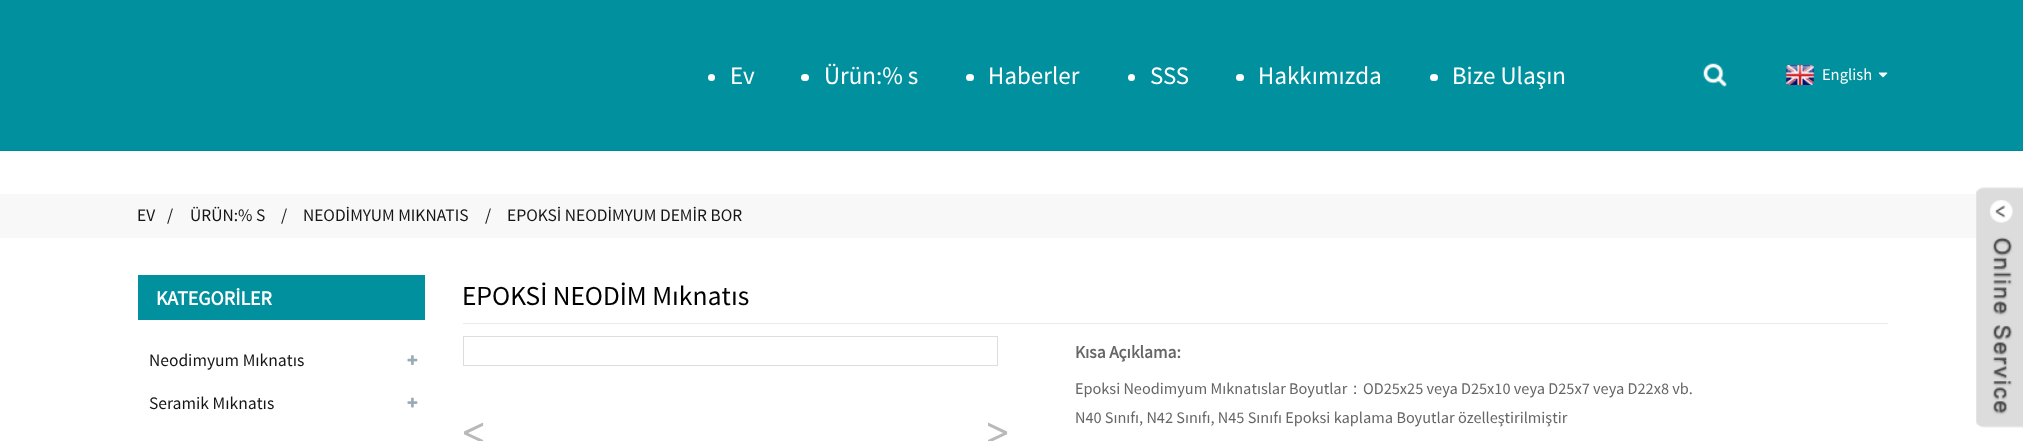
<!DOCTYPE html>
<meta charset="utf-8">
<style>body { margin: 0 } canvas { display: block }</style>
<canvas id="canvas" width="2023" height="441"></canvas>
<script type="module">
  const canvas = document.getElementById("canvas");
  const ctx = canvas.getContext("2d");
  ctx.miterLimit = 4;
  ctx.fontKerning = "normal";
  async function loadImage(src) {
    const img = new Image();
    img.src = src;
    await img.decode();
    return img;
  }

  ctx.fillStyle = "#ffffff";
  ctx.fillRect(0, 0, 2023, 441);
  ctx.fillStyle = "#00909e";
  ctx.fillRect(0, 0, 2023, 150);
  ctx.fillStyle = "#008795";
  ctx.fillRect(0, 150, 2023, 1);
  ctx.fillStyle = "#ffffff";
  ctx.beginPath();
  ctx.arc(711.5, 77.5, 3.5, 0, Math.PI * 2);
  ctx.fill();
  ctx.font = "25px Source Sans Pro";
  ctx.fillText("Ev", 730, 84);
  ctx.beginPath();
  ctx.roundRect(801, 74, 8, 7, 3.5);
  ctx.fill();
  ctx.fillText("Ürün:% s", 824, 84);
  ctx.beginPath();
  ctx.roundRect(966, 74, 8, 7, 3.5);
  ctx.fill();
  ctx.fillText("Haberler", 988, 84);
  ctx.beginPath();
  ctx.arc(1131.5, 77.5, 3.5, 0, Math.PI * 2);
  ctx.fill();
  ctx.fillText("SSS", 1150, 84);
  ctx.beginPath();
  ctx.roundRect(1236, 74, 8, 7, 3.5);
  ctx.fill();
  ctx.fillText("Hakkımızda", 1258, 84);
  ctx.beginPath();
  ctx.roundRect(1430, 74, 8, 7, 3.5);
  ctx.fill();
  ctx.fillText("Bize Ulaşın", 1452, 84);
  ctx.drawImage(await loadImage("img1.png"), 1703, 63, 24, 24);
  ctx.drawImage(await loadImage("img2.png"), 1786, 65, 28, 20);
  ctx.font = "16.5px Source Sans Pro";
  ctx.fillText("English", 1822, 80);
  ctx.drawImage(await loadImage("img3.png"), 1878, 72, 10, 6);
  ctx.fillStyle = "#f8f8f8";
  ctx.fillRect(0, 194, 1977, 44);
  ctx.font = "17.5px Source Sans Pro";
  ctx.fillStyle = "#151515";
  ctx.fillText("EV", 137, 221);
  ctx.fillText("/", 167, 221);
  ctx.fillText("ÜRÜN:% S", 190, 221);
  ctx.fillText("/", 281, 221);
  ctx.fillText("NEODİMYUM MIKNATIS", 303, 221);
  ctx.fillText("/", 485, 221);
  ctx.fillText("EPOKSİ NEODİMYUM DEMİR BOR", 507, 221);
  ctx.drawImage(await loadImage("img4.png"), 1976, 187, 47, 241);
  ctx.fillStyle = "#00909e";
  ctx.fillRect(138, 275, 287, 45);
  ctx.font = "bold 20px Source Sans Pro";
  ctx.fillStyle = "#ffffff";
  ctx.fillText("KATEGORİLER", 156, 305);
  ctx.font = "17.5px Source Sans Pro";
  ctx.fillStyle = "#151515";
  ctx.fillText("Neodimyum Mıknatıs", 149, 366);
  ctx.drawImage(await loadImage("img5.png"), 407, 355, 11, 10);
  ctx.fillText("Seramik Mıknatıs", 149, 409);
  ctx.drawImage(await loadImage("img6.png"), 407, 397, 11, 11);
  ctx.fillStyle = "#ebebeb";
  ctx.fillRect(463, 323, 1425, 1);
  ctx.font = "27.5px Source Sans Pro";
  ctx.fillStyle = "#000000";
  ctx.fillText("EPOKSİ NEODİM Mıknatıs", 462, 305);
  ctx.font = "bold 17.5px Source Sans Pro";
  ctx.fillStyle = "#666666";
  ctx.fillText("Kısa Açıklama:", 1075, 358);
  ctx.font = "16.25px Source Sans Pro";
  ctx.fillText("Epoksi Neodimyum Mıknatıslar Boyutlar", 1075, 394);
  ctx.font = "500 16.25px WenQuanYi Zen Hei";
  ctx.fillText("：", 1347, 394);
  ctx.font = "16.25px Source Sans Pro";
  ctx.fillText("OD25x25 veya D25x10 veya D25x7 veya D22x8 vb.", 1363, 394);
  ctx.fillText("N40 Sınıfı, N42 Sınıfı, N45 Sınıfı Epoksi kaplama Boyutlar özelleştirilmiştir", 1075, 423);
  ctx.strokeStyle = "#dddddd";
  ctx.strokeRect(463.5, 336.5, 534, 29);
  ctx.letterSpacing = "-11px";
  ctx.font = "bold 27.5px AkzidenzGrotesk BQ";
  ctx.fillStyle = "#b9b9b9";
  ctx.fillText("<", 464, 443);
  ctx.fillText(">", 988, 443);
</script>
